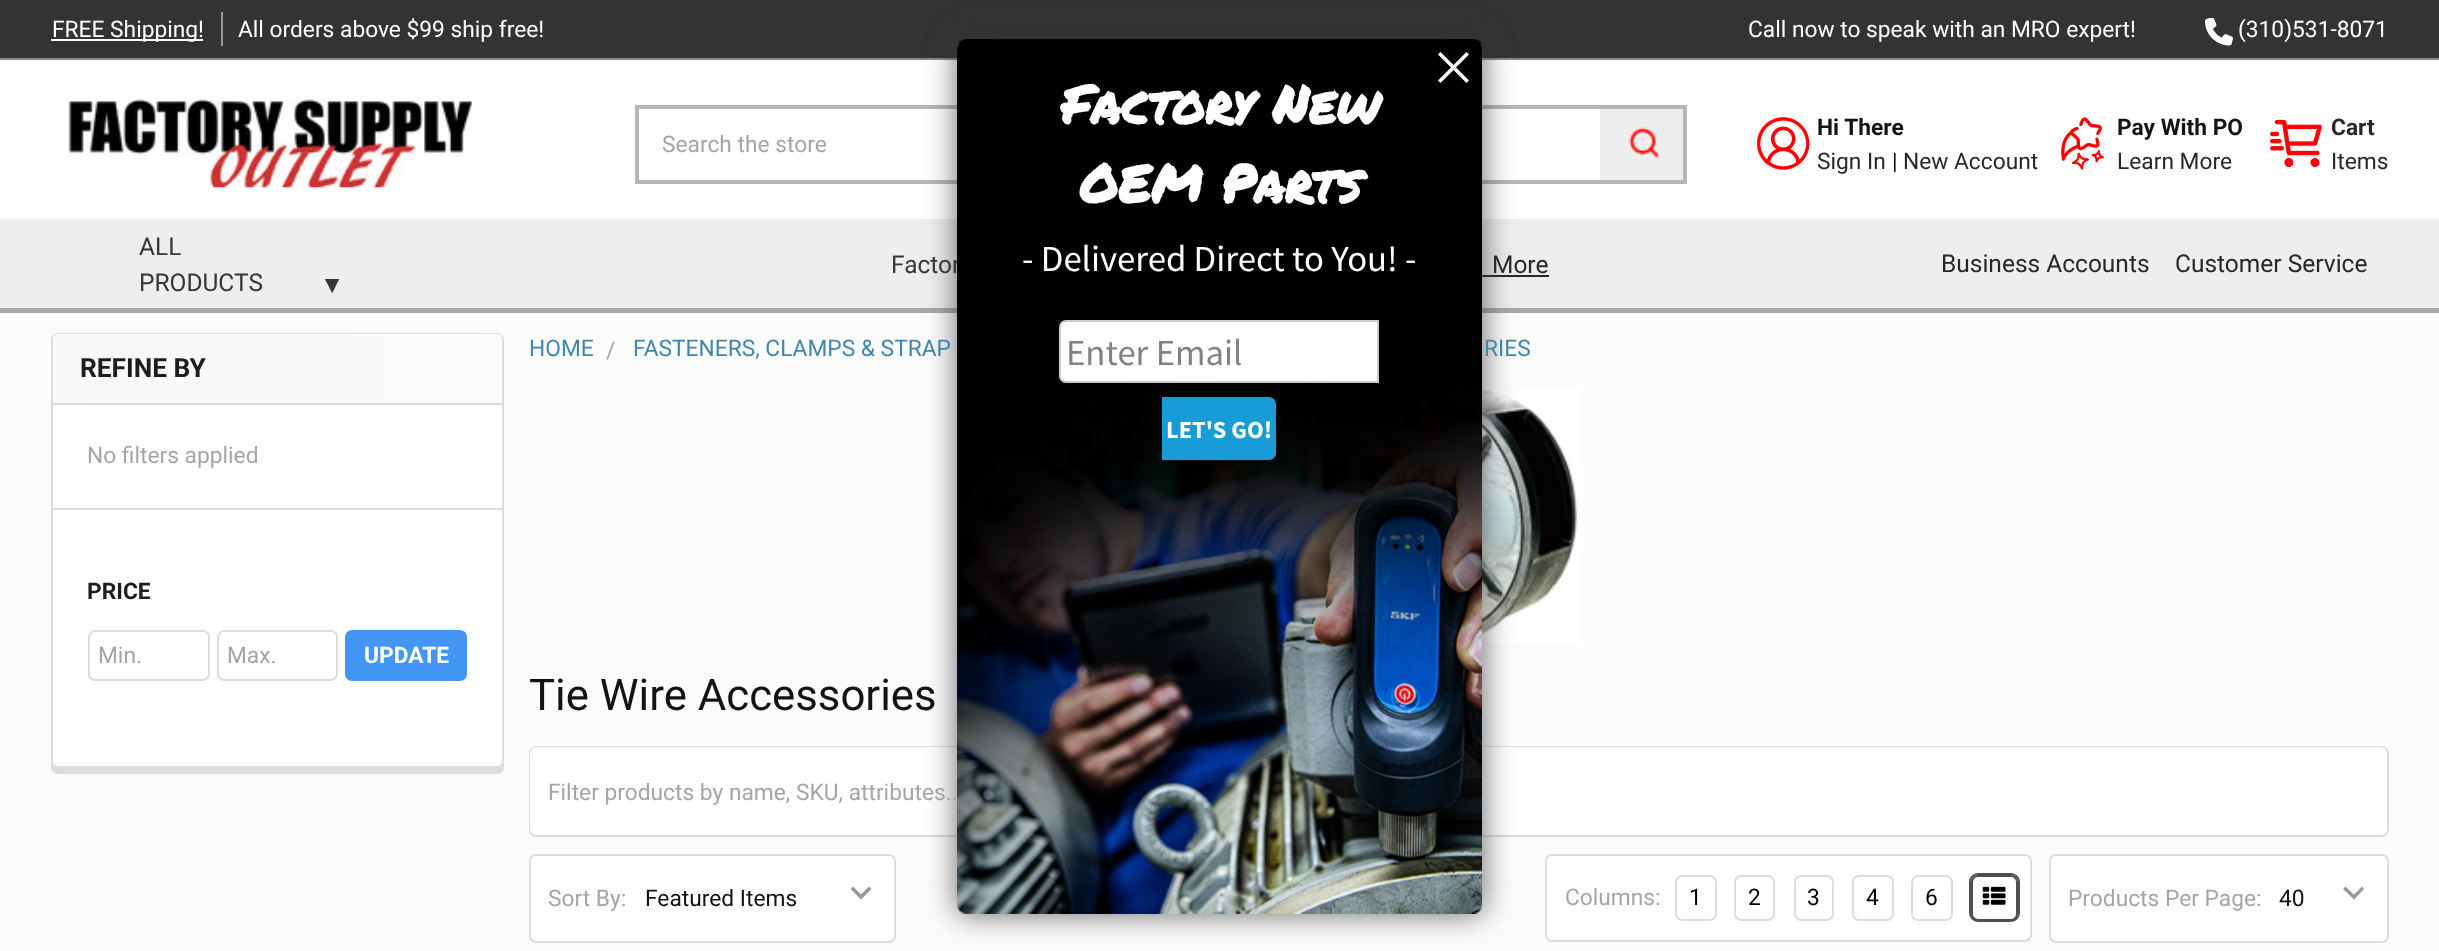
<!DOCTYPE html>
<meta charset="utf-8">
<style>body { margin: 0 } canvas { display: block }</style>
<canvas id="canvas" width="2439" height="951"></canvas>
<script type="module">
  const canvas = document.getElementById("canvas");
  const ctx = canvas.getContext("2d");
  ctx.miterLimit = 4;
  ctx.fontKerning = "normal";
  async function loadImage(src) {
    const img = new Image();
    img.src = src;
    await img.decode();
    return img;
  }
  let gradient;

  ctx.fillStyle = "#fcfcfc";
  ctx.fillRect(0, 0, 2439, 951);
  ctx.fillStyle = "#ffffff";
  ctx.fillRect(0, 60, 2439, 159);
  ctx.fillStyle = "#333333";
  ctx.fillRect(0, 0, 2439, 58);
  ctx.fillStyle = "#888888";
  ctx.fillRect(0, 58, 2439, 2);
  ctx.fillStyle = "#ffffff";
  ctx.fillRect(51, 39, 152, 2);
  ctx.font = "22.75px Roboto";
  ctx.fillText("FREE Shipping!", 52, 37);
  ctx.fillStyle = "#999999";
  ctx.fillRect(221, 12, 2, 34);
  ctx.fillStyle = "#ffffff";
  ctx.fillText("All orders above $99 ship free!", 238, 37);
  ctx.fillText("Call now to speak with an MRO expert!", 1748, 37);
  ctx.drawImage(await loadImage("img1.png"), 2205, 18, 28, 28);
  ctx.fillText("(310)531-8071", 2238, 37);
  ctx.drawImage(await loadImage("img2.png"), 68, 99, 404, 89);
  ctx.fillStyle = "#eeeeee";
  ctx.fillRect(1600, 109, 83, 71);
  ctx.drawImage(await loadImage("img3.png"), 1629, 127, 31, 31);
  ctx.strokeStyle = "#b6b6b6";
  ctx.lineWidth = 4;
  ctx.strokeRect(637, 107, 1048, 75);
  ctx.fillStyle = "#a5a5a5";
  ctx.fillText("Search the store", 662, 152);
  ctx.drawImage(await loadImage("img4.png"), 1757, 117, 53, 53);
  ctx.font = "bold 22.75px Roboto";
  ctx.fillStyle = "#131313";
  ctx.fillText("Hi There", 1817, 135);
  ctx.font = "22.75px Roboto";
  ctx.fillStyle = "#282828";
  ctx.fillText("Sign In", 1817, 169);
  ctx.fillStyle = "#131313";
  ctx.fillText("|", 1892, 169);
  ctx.fillStyle = "#282828";
  ctx.fillText("New Account", 1903, 169);
  ctx.drawImage(await loadImage("img5.png"), 2061, 117, 43, 53);
  ctx.font = "bold 22.75px Roboto";
  ctx.fillStyle = "#131313";
  ctx.fillText("Pay With PO", 2117, 135);
  ctx.font = "22.75px Roboto";
  ctx.fillStyle = "#282828";
  ctx.fillText("Learn More", 2117, 169);
  ctx.drawImage(await loadImage("img6.png"), 2270, 119, 52, 49);
  ctx.font = "bold 22.75px Roboto";
  ctx.fillText("Cart", 2331, 135);
  ctx.font = "22.75px Roboto";
  ctx.fillText("Items", 2331, 169);
  ctx.fillStyle = "#aba8a8";
  ctx.fillRect(0, 308, 2439, 5);
  ctx.fillStyle = "#eeeeee";
  ctx.fillRect(0, 219, 2439, 89);
  ctx.font = "24.5px Roboto";
  ctx.fillStyle = "#383636";
  ctx.fillText("ALL", 139, 255);
  ctx.fillText("PRODUCTS", 139, 291);
  ctx.font = "24.5px Liberation Serif";
  ctx.fillText("▼", 320, 293);
  ctx.font = "24.5px Roboto";
  ctx.fillText("Factor", 891, 273);
  ctx.fillStyle = "#282828";
  ctx.fillText("More", 1492, 273);
  ctx.fillRect(1482, 275, 67, 2);
  ctx.fillText("Business Accounts", 1941, 272);
  ctx.fillText("Customer Service", 2175, 272);
  ctx.drawImage(await loadImage("img8.png"), 1482, 390, 96, 253);
  ctx.fillStyle = "#ffffff";
  ctx.beginPath();
  ctx.roundRect(530, 747, 1858, 89, 6);
  ctx.fill();
  ctx.strokeStyle = "#dcdcdc";
  ctx.lineWidth = 2;
  ctx.stroke();
  ctx.beginPath();
  ctx.roundRect(530, 747, 1857, 88, 7);
  ctx.fill();
  ctx.fillStyle = "rgba(50, 50, 50, 0.69)";
  ctx.filter = "blur(15px)";
  ctx.beginPath();
  ctx.roundRect(956, 37, 528, 878, 11);
  ctx.fill();
  ctx.filter = "none";
  ctx.fillStyle = "#ffffff";
  ctx.beginPath();
  ctx.roundRect(957, 39, 525, 875, 9);
  ctx.fill();
  ctx.drawImage(await loadImage("img7.png"), 957, 39, 525, 875);
  ctx.beginPath();
  ctx.moveTo(1440.5, 52);
  ctx.lineTo(1469, 80.5);
  ctx.lineTo(1466.5, 83);
  ctx.lineTo(1438, 54.5);
  ctx.closePath();
  ctx.fill();
  ctx.beginPath();
  ctx.moveTo(1438, 80.5);
  ctx.lineTo(1466.5, 52);
  ctx.lineTo(1469, 54.5);
  ctx.lineTo(1440.5, 83);
  ctx.closePath();
  ctx.fill();
  ctx.font = "bold 52.5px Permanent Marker";
  ctx.fillText("Factory New", 1061, 124);
  ctx.fillText("OEM Parts", 1079, 203);
  ctx.font = "36.75px Source Sans Pro";
  ctx.fillText("- Delivered Direct to You! -", 1022, 271);
  ctx.beginPath();
  ctx.roundRect(1060, 321, 318, 61, [6, 0, 0, 6]);
  ctx.fill();
  ctx.strokeStyle = "#cccccc";
  ctx.stroke();
  ctx.fillStyle = "#818181";
  ctx.fillText("Enter Email", 1066, 365);
  ctx.fillStyle = "#199bd7";
  ctx.beginPath();
  ctx.roundRect(1162, 397, 114, 63, [0, 7, 7, 0]);
  ctx.fill();
  ctx.font = "bold 24.5px Source Sans Pro";
  ctx.fillStyle = "#ffffff";
  ctx.fillText("LET'S GO!", 1166, 438);
  ctx.fillStyle = "#dcdcdc";
  ctx.beginPath();
  ctx.moveTo(51, 763);
  ctx.lineTo(51, 767);
  ctx.bezierCurveTo(51, 771, 54, 774, 58, 774);
  ctx.lineTo(497, 774);
  ctx.bezierCurveTo(501, 774, 504, 771, 504, 767);
  ctx.lineTo(504, 761);
  ctx.bezierCurveTo(504, 765, 501, 768, 497, 768);
  ctx.lineTo(58, 768);
  ctx.bezierCurveTo(55, 768, 52, 766, 51, 763);
  ctx.closePath();
  ctx.fill();
  ctx.fillStyle = "#ffffff";
  ctx.beginPath();
  ctx.roundRect(52, 334, 451, 433, 6);
  ctx.fill();
  ctx.strokeStyle = "#dcdcdc";
  ctx.stroke();
  ctx.beginPath();
  ctx.roundRect(53, 334, 449, 175, [5, 5, 0, 0]);
  ctx.fill();
  ctx.fillStyle = "#dcdcdc";
  ctx.fillRect(53, 508, 449, 2);
  gradient = ctx.createLinearGradient(53, 368, 502, 368);
  gradient.addColorStop(0, "#f8f8f8");
  gradient.addColorStop(1, "rgba(248, 248, 248, 0.6)");
  ctx.fillStyle = gradient;
  ctx.beginPath();
  ctx.roundRect(53, 334, 449, 70, [5, 5, 0, 0]);
  ctx.fill();
  ctx.fillStyle = "#dcdcdc";
  ctx.fillRect(53, 403, 449, 2);
  ctx.font = "bold 26.25px Roboto";
  ctx.fillStyle = "#1d1d1d";
  ctx.fillText("REFINE BY", 80, 377);
  ctx.font = "22.75px Roboto";
  ctx.fillStyle = "#a5a5a5";
  ctx.fillText("No filters applied", 87, 463);
  ctx.font = "bold 22.75px Roboto";
  ctx.fillStyle = "#1d1d1d";
  ctx.fillText("PRICE", 87, 599);
  ctx.beginPath();
  ctx.roundRect(89, 631, 120, 49, 6);
  ctx.stroke();
  ctx.font = "22.75px Roboto";
  ctx.fillStyle = "#a5a5a5";
  ctx.fillText("Min.", 98, 663);
  ctx.beginPath();
  ctx.roundRect(218, 631, 119, 49, 6);
  ctx.stroke();
  ctx.fillText("Max.", 227, 663);
  ctx.fillStyle = "#4496f6";
  ctx.beginPath();
  ctx.roundRect(346, 631, 120, 49, 6);
  ctx.fill();
  ctx.strokeStyle = "#4496f6";
  ctx.stroke();
  ctx.font = "bold 22.75px Roboto";
  ctx.fillStyle = "#ffffff";
  ctx.fillText("UPDATE", 364, 663);
  ctx.font = "22.75px Roboto";
  ctx.fillStyle = "#4186ad";
  ctx.fillText("HOME", 529, 356);
  ctx.fillStyle = "#a5a5a5";
  ctx.fillText("/", 606, 358);
  ctx.fillStyle = "#4186ad";
  ctx.fillText("FASTENERS, CLAMPS & STRAP", 633, 356);
  ctx.fillText("RIES", 1484, 356);
  ctx.font = "43.75px Roboto";
  ctx.fillStyle = "#131313";
  ctx.fillText("Tie Wire Accessories", 529, 710);
  ctx.font = "22.75px Roboto";
  ctx.fillStyle = "#a5a5a5";
  ctx.fillText("Filter products by name, SKU, attributes..", 548, 800);
  ctx.fillStyle = "#ffffff";
  ctx.beginPath();
  ctx.roundRect(530, 855, 365, 87, 6);
  ctx.fill();
  ctx.strokeStyle = "#dcdcdc";
  ctx.stroke();
  ctx.fillStyle = "#a5a5a5";
  ctx.fillText("Sort By:", 548, 906);
  ctx.fillStyle = "#999999";
  ctx.beginPath();
  ctx.moveTo(869, 886.5);
  ctx.lineTo(861, 894.5);
  ctx.lineTo(853, 886.5);
  ctx.lineTo(850.5, 889);
  ctx.lineTo(861, 899.5);
  ctx.lineTo(871.5, 889);
  ctx.closePath();
  ctx.fill();
  ctx.fillStyle = "#131313";
  ctx.fillText("Featured Items", 645, 906);
  ctx.fillStyle = "#ffffff";
  ctx.beginPath();
  ctx.roundRect(1546, 855, 485, 86, 6);
  ctx.fill();
  ctx.stroke();
  ctx.fillStyle = "#a5a5a5";
  ctx.fillText("Columns:", 1565, 905);
  ctx.beginPath();
  ctx.roundRect(1676, 876, 40, 44, 6);
  ctx.stroke();
  ctx.fillStyle = "#000000";
  ctx.fillText("1", 1689, 905);
  ctx.beginPath();
  ctx.roundRect(1735, 876, 39, 44, 6);
  ctx.stroke();
  ctx.fillText("2", 1748, 905);
  ctx.beginPath();
  ctx.roundRect(1795, 876, 38, 44, 6);
  ctx.stroke();
  ctx.fillText("3", 1807, 905);
  ctx.beginPath();
  ctx.roundRect(1853, 876, 40, 44, 6);
  ctx.stroke();
  ctx.fillText("4", 1866, 905);
  ctx.beginPath();
  ctx.roundRect(1912, 876, 40, 44, 6);
  ctx.stroke();
  ctx.fillText("6", 1925, 905);
  ctx.beginPath();
  ctx.roundRect(1970, 874, 49, 47, 8);
  ctx.strokeStyle = "#4f4f4f";
  ctx.stroke();
  ctx.beginPath();
  ctx.roundRect(1972, 876, 45, 44, 6);
  ctx.stroke();
  ctx.drawImage(await loadImage("img9.png"), 1982, 886, 24, 19);
  ctx.fillStyle = "#ffffff";
  ctx.beginPath();
  ctx.roundRect(2050, 855, 338, 87, 6);
  ctx.fill();
  ctx.strokeStyle = "#dcdcdc";
  ctx.stroke();
  ctx.fillStyle = "#a5a5a5";
  ctx.fillText("Products Per Page:", 2068, 906);
  ctx.fillStyle = "#999999";
  ctx.beginPath();
  ctx.moveTo(2362, 886.5);
  ctx.lineTo(2354, 894.5);
  ctx.lineTo(2345.5, 886.5);
  ctx.lineTo(2343, 889);
  ctx.lineTo(2354, 899.5);
  ctx.lineTo(2364, 889);
  ctx.closePath();
  ctx.fill();
  ctx.fillStyle = "#131313";
  ctx.fillText("40", 2279, 906);
</script>
